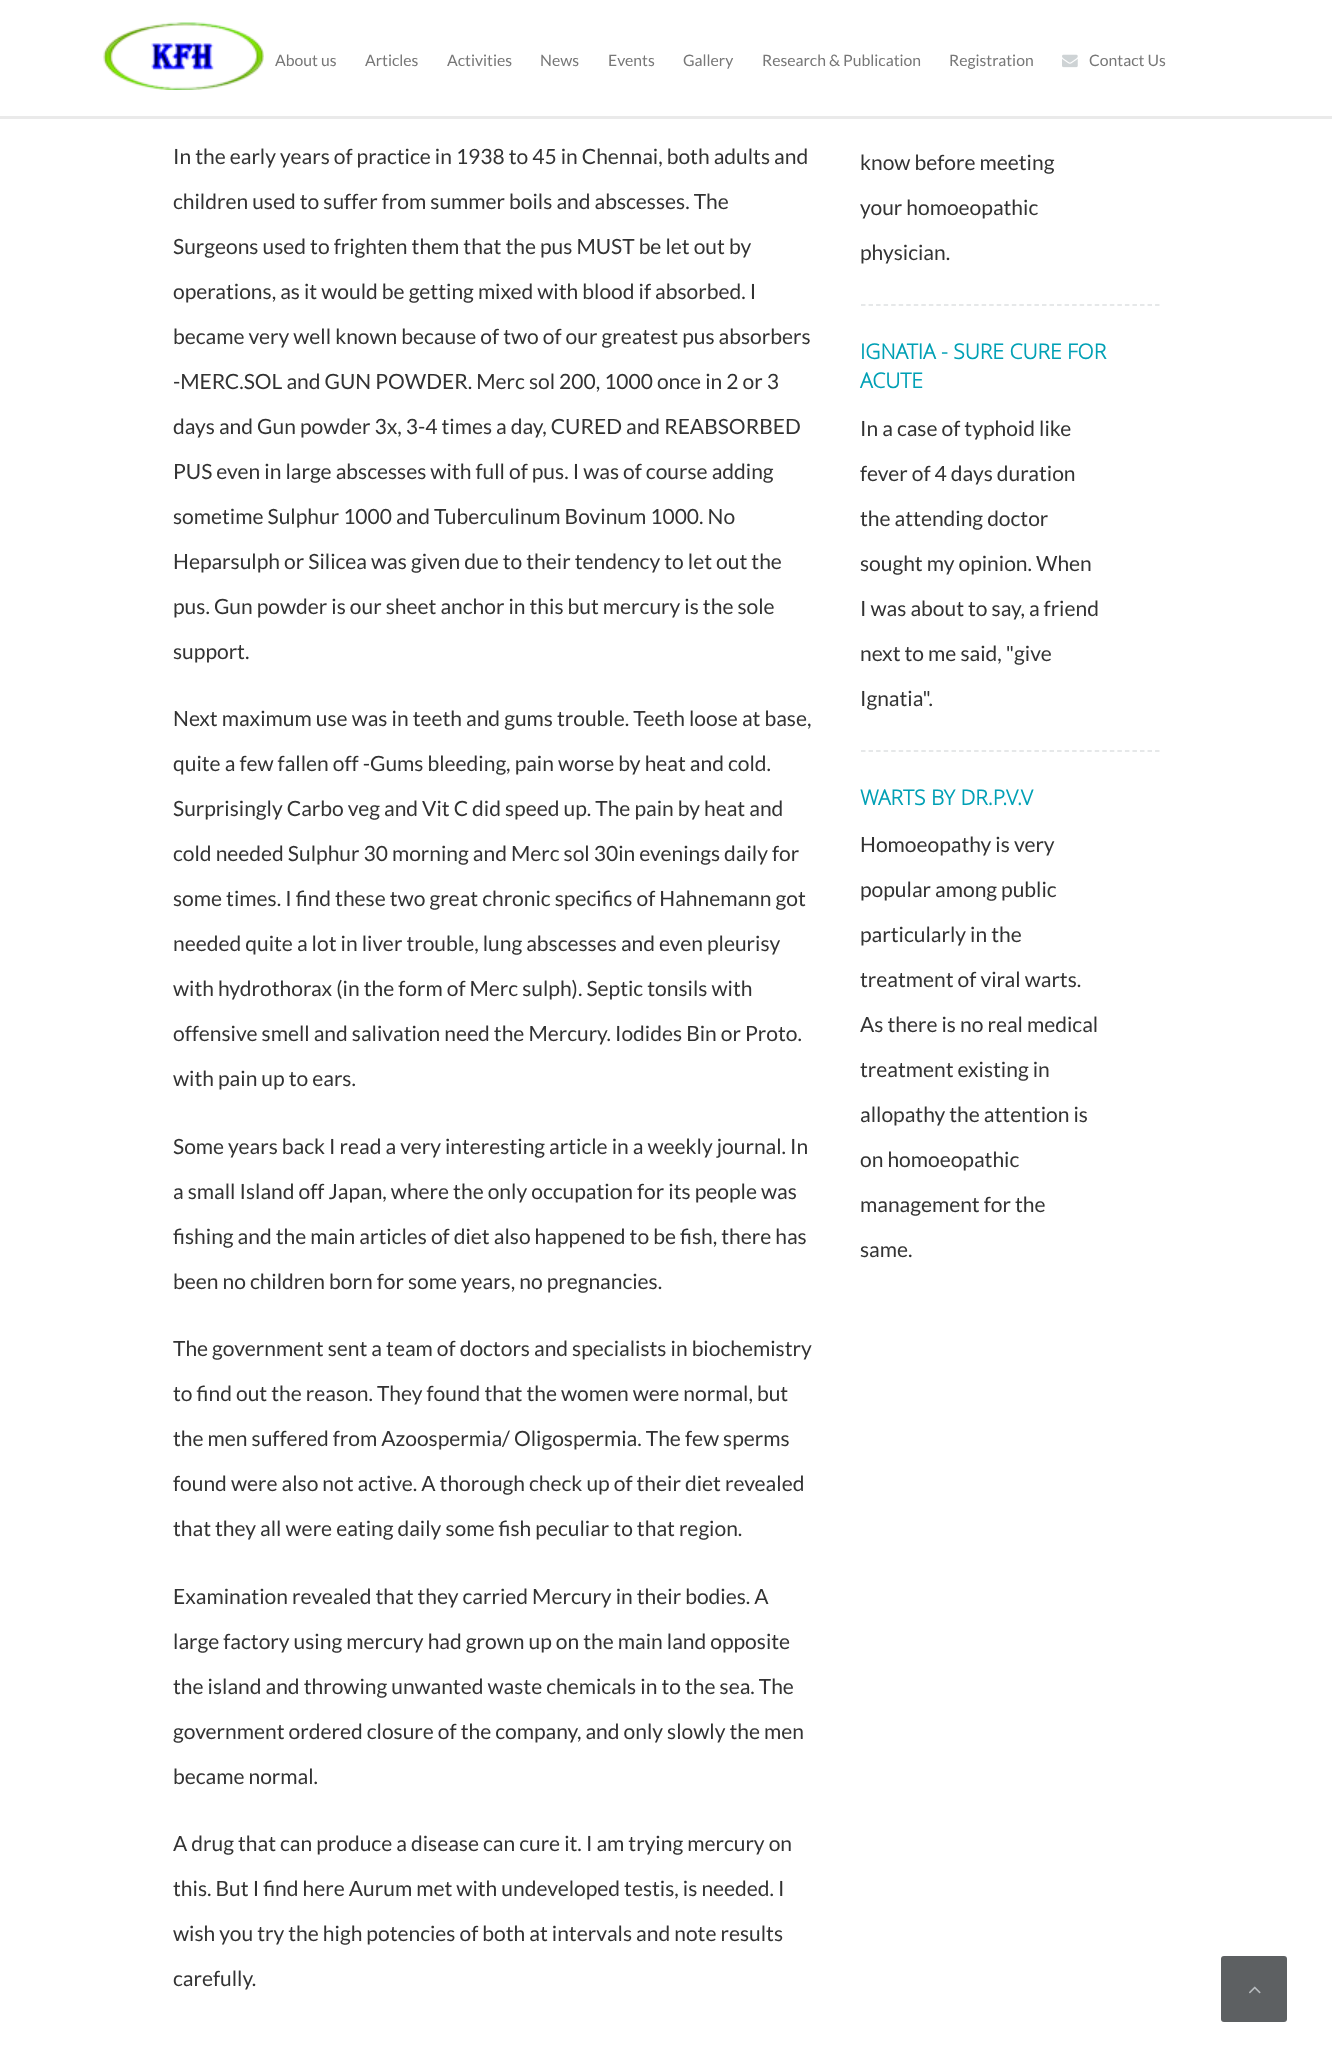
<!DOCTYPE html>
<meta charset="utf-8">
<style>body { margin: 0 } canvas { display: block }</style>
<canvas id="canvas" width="1332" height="2066"></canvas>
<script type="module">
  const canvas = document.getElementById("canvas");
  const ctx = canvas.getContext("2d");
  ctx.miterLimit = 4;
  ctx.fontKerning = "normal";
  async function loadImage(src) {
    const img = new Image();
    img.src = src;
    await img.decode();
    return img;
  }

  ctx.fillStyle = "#ffffff";
  ctx.fillRect(0, 0, 1332, 2066);
  ctx.fillStyle = "#eaeaea";
  ctx.fillRect(0, 116, 1332, 3);
  ctx.drawImage(await loadImage("img1.png"), 103, 22, 161, 68);
  ctx.font = "15.75px Lato";
  ctx.fillStyle = "#777777";
  ctx.fillText("About us", 275, 66);
  ctx.fillText("Articles", 365, 66);
  ctx.fillText("Activities", 447, 66);
  ctx.fillText("News", 540, 66);
  ctx.fillText("Events", 608, 66);
  ctx.fillText("Gallery", 683, 66);
  ctx.fillText("Research & Publication", 762, 66);
  ctx.fillText("Registration", 949, 66);
  ctx.drawImage(await loadImage("img2.png"), 1062, 54, 16, 14);
  ctx.fillText("Contact Us", 1089, 66);
  ctx.font = "21px Lato";
  ctx.fillStyle = "#333333";
  ctx.fillText("In the early years of practice in 1938 to 45 in Chennai, both adults and", 173, 164);
  ctx.fillText("children used to suffer from summer boils and abscesses. The", 173, 209);
  ctx.fillText("Surgeons used to frighten them that the pus MUST be let out by", 173, 254);
  ctx.fillText("operations, as it would be getting mixed with blood if absorbed. I", 173, 299);
  ctx.fillText("became very well known because of two of our greatest pus absorbers", 173, 344);
  ctx.fillText("-MERC.SOL and GUN POWDER. Merc sol 200, 1000 once in 2 or 3", 173, 389);
  ctx.fillText("days and Gun powder 3x, 3-4 times a day, CURED and REABSORBED", 173, 434);
  ctx.fillText("PUS even in large abscesses with full of pus. I was of course adding", 173, 479);
  ctx.fillText("sometime Sulphur 1000 and Tuberculinum Bovinum 1000. No", 173, 524);
  ctx.fillText("Heparsulph or Silicea was given due to their tendency to let out the", 173, 569);
  ctx.fillText("pus. Gun powder is our sheet anchor in this but mercury is the sole", 173, 614);
  ctx.fillText("support.", 173, 659);
  ctx.fillText("Next maximum use was in teeth and gums trouble. Teeth loose at base,", 173, 726);
  ctx.fillText("quite a few fallen off -Gums bleeding, pain worse by heat and cold.", 173, 771);
  ctx.fillText("Surprisingly Carbo veg and Vit C did speed up. The pain by heat and", 173, 816);
  ctx.fillText("cold needed Sulphur 30 morning and Merc sol 30in evenings daily for", 173, 861);
  ctx.fillText("some times. I find these two great chronic specifics of Hahnemann got", 173, 906);
  ctx.fillText("needed quite a lot in liver trouble, lung abscesses and even pleurisy", 173, 951);
  ctx.fillText("with hydrothorax (in the form of Merc sulph). Septic tonsils with", 173, 996);
  ctx.fillText("offensive smell and salivation need the Mercury. Iodides Bin or Proto.", 173, 1041);
  ctx.fillText("with pain up to ears.", 173, 1086);
  ctx.fillText("Some years back I read a very interesting article in a weekly journal. In", 173, 1154);
  ctx.fillText("a small Island off Japan, where the only occupation for its people was", 173, 1199);
  ctx.fillText("fishing and the main articles of diet also happened to be fish, there has", 173, 1244);
  ctx.fillText("been no children born for some years, no pregnancies.", 173, 1289);
  ctx.fillText("The government sent a team of doctors and specialists in biochemistry", 173, 1356);
  ctx.fillText("to find out the reason. They found that the women were normal, but", 173, 1401);
  ctx.fillText("the men suffered from Azoospermia/ Oligospermia. The few sperms", 173, 1446);
  ctx.fillText("found were also not active. A thorough check up of their diet revealed", 173, 1491);
  ctx.fillText("that they all were eating daily some fish peculiar to that region.", 173, 1536);
  ctx.fillText("Examination revealed that they carried Mercury in their bodies. A", 173, 1604);
  ctx.fillText("large factory using mercury had grown up on the main land opposite", 173, 1649);
  ctx.fillText("the island and throwing unwanted waste chemicals in to the sea. The", 173, 1694);
  ctx.fillText("government ordered closure of the company, and only slowly the men", 173, 1739);
  ctx.fillText("became normal.", 173, 1784);
  ctx.fillText("A drug that can produce a disease can cure it. I am trying mercury on", 173, 1851);
  ctx.fillText("this. But I find here Aurum met with undeveloped testis, is needed. I", 173, 1896);
  ctx.fillText("wish you try the high potencies of both at intervals and note results", 173, 1941);
  ctx.fillText("carefully.", 173, 1986);
  ctx.beginPath();
  ctx.moveTo(861, 305);
  ctx.lineTo(1159.5, 305);
  ctx.strokeStyle = "#dee1e2";
  ctx.lineWidth = 1.5;
  ctx.setLineDash([4.5, 3.04]);
  ctx.stroke();
  ctx.fillText("know before meeting", 860, 170);
  ctx.fillText("your homoeopathic", 860, 215);
  ctx.fillText("physician.", 860, 260);
  ctx.beginPath();
  ctx.moveTo(861, 751);
  ctx.lineTo(1159.5, 751);
  ctx.stroke();
  ctx.font = "bold 21px Open Sans";
  ctx.fillStyle = "#00a0b5";
  ctx.fillText("IGNATIA - SURE CURE FOR", 860, 359);
  ctx.fillText("ACUTE", 860, 388);
  ctx.font = "21px Lato";
  ctx.fillStyle = "#333333";
  ctx.fillText("In a case of typhoid like", 860, 436);
  ctx.fillText("fever of 4 days duration", 860, 481);
  ctx.fillText("the attending doctor", 860, 526);
  ctx.fillText("sought my opinion. When", 860, 571);
  ctx.fillText("I was about to say, a friend", 860, 616);
  ctx.fillText("next to me said, \"give", 860, 661);
  ctx.fillText("Ignatia\".", 860, 706);
  ctx.font = "bold 21px Open Sans";
  ctx.fillStyle = "#00a0b5";
  ctx.fillText("WARTS BY DR.P.V.V", 860, 805);
  ctx.font = "21px Lato";
  ctx.fillStyle = "#333333";
  ctx.fillText("Homoeopathy is very", 860, 852);
  ctx.fillText("popular among public", 860, 897);
  ctx.fillText("particularly in the", 860, 942);
  ctx.fillText("treatment of viral warts.", 860, 987);
  ctx.fillText("As there is no real medical", 860, 1032);
  ctx.fillText("treatment existing in", 860, 1077);
  ctx.fillText("allopathy the attention is", 860, 1122);
  ctx.fillText("on homoeopathic", 860, 1167);
  ctx.fillText("management for the", 860, 1212);
  ctx.fillText("same.", 860, 1257);
  ctx.fillStyle = "#5d6062";
  ctx.beginPath();
  ctx.roundRect(1221, 1956, 66, 66, 3);
  ctx.fill();
  ctx.drawImage(await loadImage("img3.png"), 1249, 1986, 12, 8);
</script>
